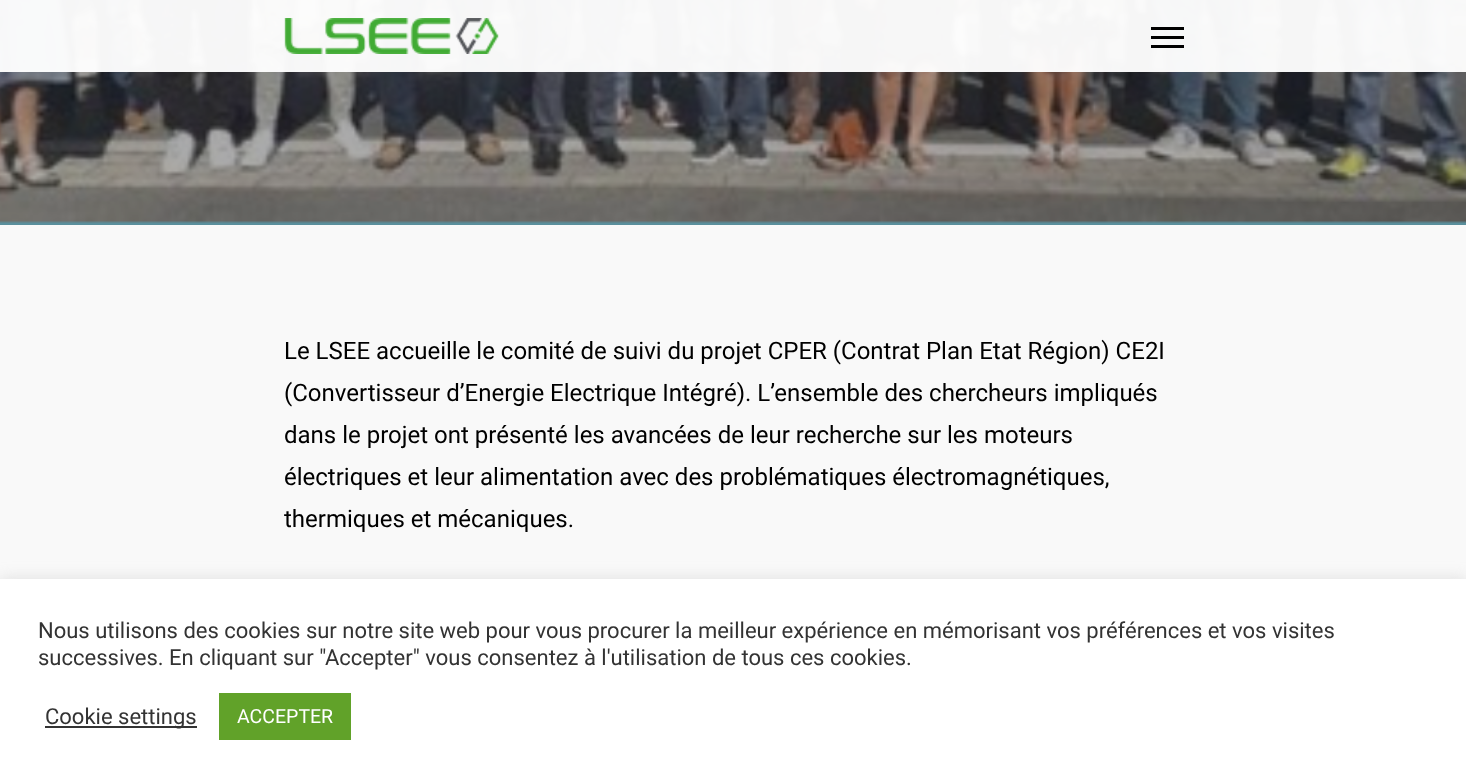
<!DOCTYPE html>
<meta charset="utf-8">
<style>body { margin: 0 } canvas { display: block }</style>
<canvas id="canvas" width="1466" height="784"></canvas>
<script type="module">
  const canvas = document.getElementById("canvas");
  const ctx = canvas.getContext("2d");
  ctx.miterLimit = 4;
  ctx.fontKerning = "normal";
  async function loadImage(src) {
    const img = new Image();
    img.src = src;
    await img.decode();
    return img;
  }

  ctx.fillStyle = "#f9f9f9";
  ctx.fillRect(0, 0, 1466, 784);
  ctx.drawImage(await loadImage("img2.png"), 0, 0, 1466, 225);
  ctx.fillStyle = "rgba(255, 255, 255, 0.96)";
  ctx.fillRect(0, 0, 1466, 72);
  ctx.drawImage(await loadImage("img1.png"), 284, 18, 215, 36);
  ctx.fillStyle = "#000000";
  ctx.fillRect(1151, 27, 33, 3);
  ctx.fillRect(1151, 45, 33, 3);
  ctx.fillRect(1151, 36, 33, 3);
  ctx.font = "24px Roboto";
  ctx.fillText("Le LSEE accueille le comité de suivi du projet CPER (Contrat Plan Etat Région) CE2I", 284, 359);
  ctx.fillText("(Convertisseur d’Energie Electrique Intégré). L’ensemble des chercheurs impliqués", 284, 401);
  ctx.fillText("dans le projet ont présenté les avancées de leur recherche sur les moteurs", 284, 443);
  ctx.fillText("électriques et leur alimentation avec des problématiques électromagnétiques,", 284, 485);
  ctx.fillText("thermiques et mécaniques.", 284, 527);
  ctx.fillStyle = "rgba(172, 171, 171, 0.3)";
  ctx.filter = "blur(7.5px)";
  ctx.beginPath();
  ctx.rect(0, 578, 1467, 205);
  ctx.fill();
  ctx.filter = "none";
  ctx.fillStyle = "#ffffff";
  ctx.fillRect(0, 579, 1466, 205);
  ctx.font = "22px Roboto";
  ctx.fillStyle = "#333333";
  ctx.fillText("Nous utilisons des cookies sur notre site web pour vous procurer la meilleur expérience en mémorisant vos préférences et vos visites", 38, 638);
  ctx.fillText("successives. En cliquant sur \"Accepter\" vous consentez à l'utilisation de tous ces cookies.", 38, 665);
  ctx.fillRect(45, 726, 152, 2);
  ctx.fillText("Cookie settings", 45, 724);
  ctx.fillStyle = "#61a229";
  ctx.fillRect(219, 693, 132, 47);
  ctx.font = "19.5px Roboto";
  ctx.fillStyle = "#ffffff";
  ctx.fillText("ACCEPTER", 237, 723);
</script>
